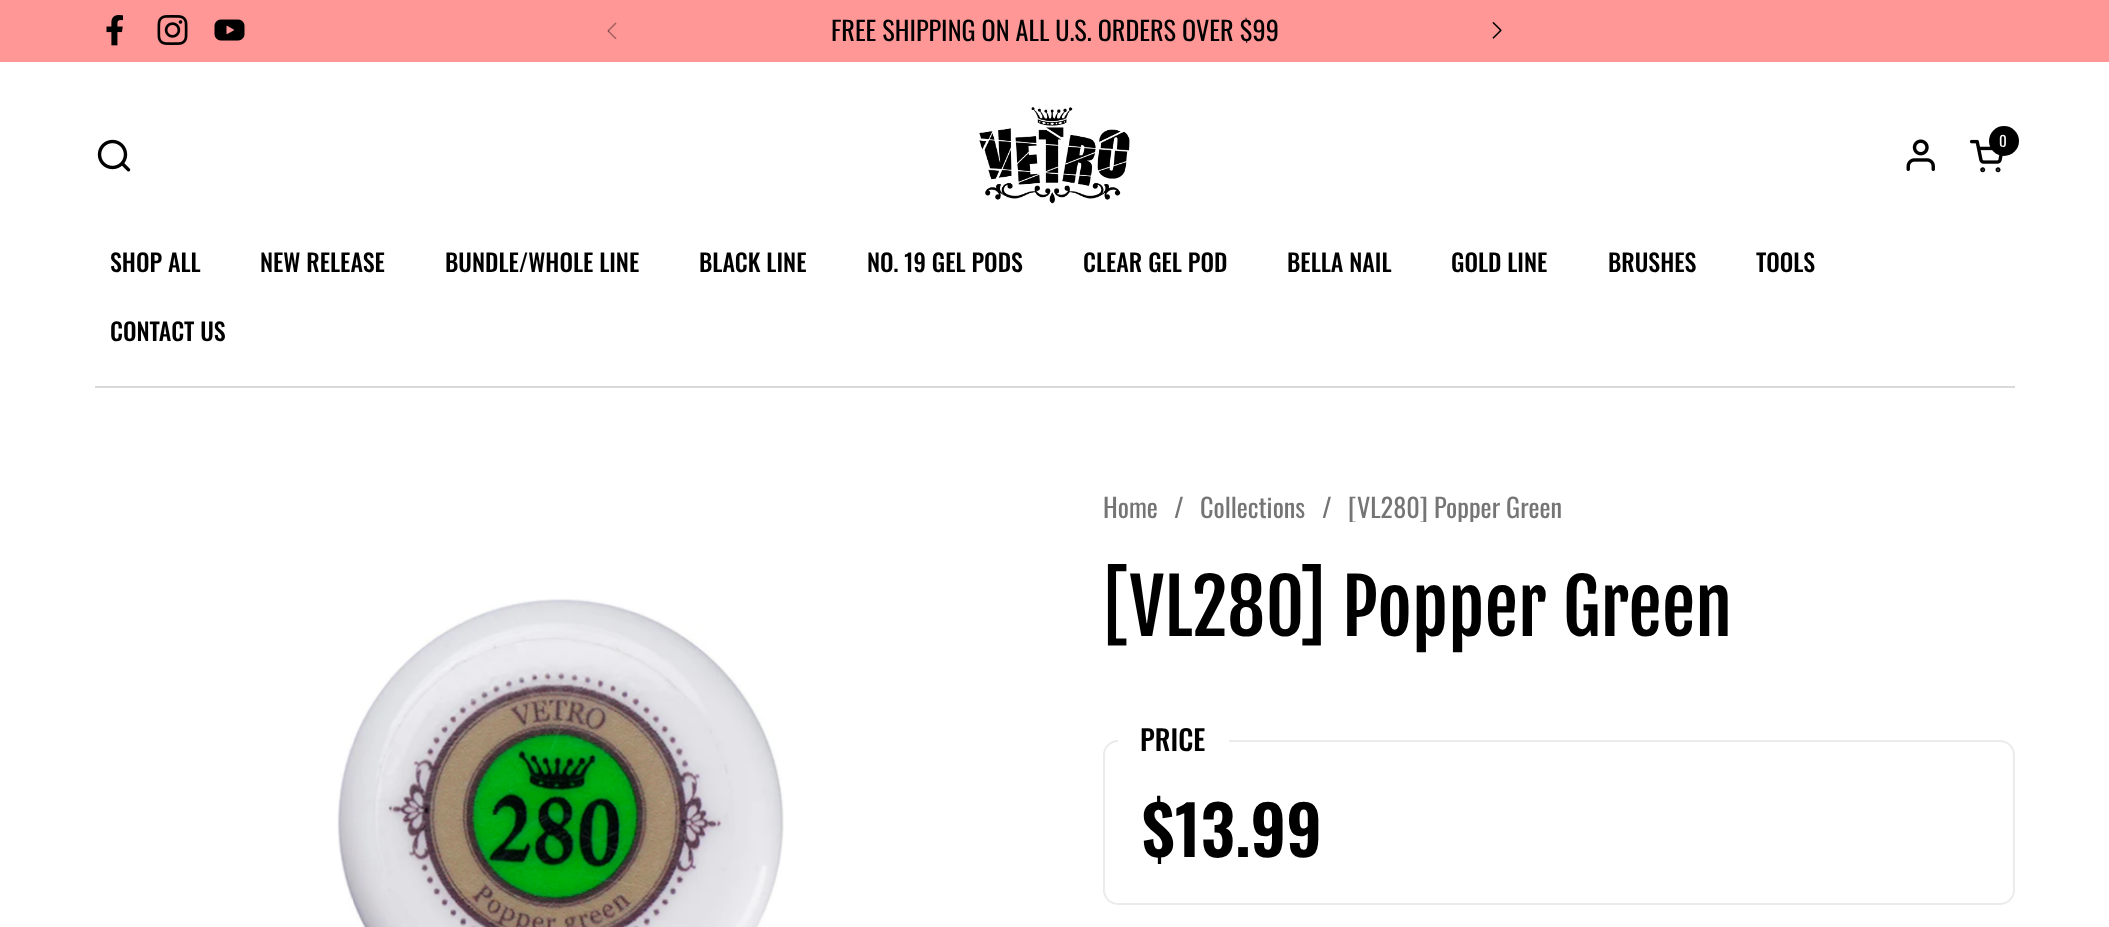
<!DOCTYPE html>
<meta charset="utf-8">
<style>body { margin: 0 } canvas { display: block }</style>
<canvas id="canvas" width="2109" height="927"></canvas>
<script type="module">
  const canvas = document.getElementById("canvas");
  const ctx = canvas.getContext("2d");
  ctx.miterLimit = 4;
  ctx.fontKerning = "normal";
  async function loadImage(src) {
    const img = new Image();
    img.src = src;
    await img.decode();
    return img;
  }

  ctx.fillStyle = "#ffffff";
  ctx.fillRect(0, 0, 2109, 927);
  ctx.fillStyle = "#ff9797";
  ctx.fillRect(0, 0, 2109, 62);
  ctx.drawImage(await loadImage("img1.png"), 106, 15, 17, 31);
  ctx.drawImage(await loadImage("img2.png"), 157, 15, 31, 30);
  ctx.drawImage(await loadImage("img3.png"), 214, 19, 31, 22);
  ctx.drawImage(await loadImage("img4.png"), 607, 22, 10, 17);
  ctx.font = "26.25px Oswald";
  ctx.fillStyle = "#000000";
  ctx.fillText("FREE SHIPPING ON ALL U.S. ORDERS OVER $99", 831, 41);
  ctx.drawImage(await loadImage("img5.png"), 1492, 21, 10, 18);
  ctx.drawImage(await loadImage("img6.png"), 97, 139, 34, 33);
  ctx.drawImage(await loadImage("img7.png"), 979, 107, 151, 97);
  ctx.drawImage(await loadImage("img8.png"), 1906, 139, 29, 32);
  ctx.beginPath();
  ctx.arc(2004, 141, 15, 0, Math.PI * 2);
  ctx.fill();
  ctx.font = "15px Oswald";
  ctx.fillStyle = "#ffffff";
  ctx.fillText("0", 1999, 147);
  ctx.drawImage(await loadImage("img9.png"), 1969, 139, 35, 34);
  ctx.font = "500 24px Oswald";
  ctx.fillStyle = "#000000";
  ctx.fillText("SHOP ALL", 110, 272);
  ctx.fillText("NEW RELEASE", 260, 272);
  ctx.fillText("BUNDLE/WHOLE LINE", 445, 272);
  ctx.fillText("BLACK LINE", 699, 272);
  ctx.fillText("NO. 19 GEL PODS", 867, 272);
  ctx.fillText("CLEAR GEL POD", 1083, 272);
  ctx.fillText("BELLA NAIL", 1287, 272);
  ctx.fillText("GOLD LINE", 1451, 272);
  ctx.fillText("BRUSHES", 1608, 272);
  ctx.fillText("TOOLS", 1756, 272);
  ctx.fillText("CONTACT US", 110, 341);
  ctx.fillStyle = "#d9d9d9";
  ctx.fillRect(95, 386, 1920, 2);
  ctx.drawImage(await loadImage("img10.png"), 337, 599, 447, 328);
  ctx.font = "26.25px Oswald";
  ctx.fillStyle = "#757575";
  ctx.fillText("Home", 1103, 518);
  ctx.fillText("/", 1174, 518);
  ctx.fillText("Collections", 1200, 518);
  ctx.fillText("/", 1322, 518);
  ctx.save();
  ctx.beginPath();
  ctx.rect(1103, 492, 912, 30);
  ctx.clip();
  ctx.fillText("[VL280] Popper Green", 1348, 518);
  ctx.restore();
  ctx.font = "75px Fjalla One";
  ctx.fillStyle = "#000000";
  ctx.fillText("[VL280] Popper Green", 1103, 636);
  ctx.beginPath();
  ctx.roundRect(1104, 741, 910, 163, 14);
  ctx.strokeStyle = "#ebebeb";
  ctx.lineWidth = 2;
  ctx.stroke();
  ctx.fillStyle = "#ffffff";
  ctx.fillRect(1118, 740, 111, 2);
  ctx.font = "500 28px Oswald";
  ctx.fillStyle = "#000000";
  ctx.fillText("PRICE", 1140, 751);
  ctx.font = "600 67.5px Oswald";
  ctx.fillText("$13.99", 1142, 857);
</script>
